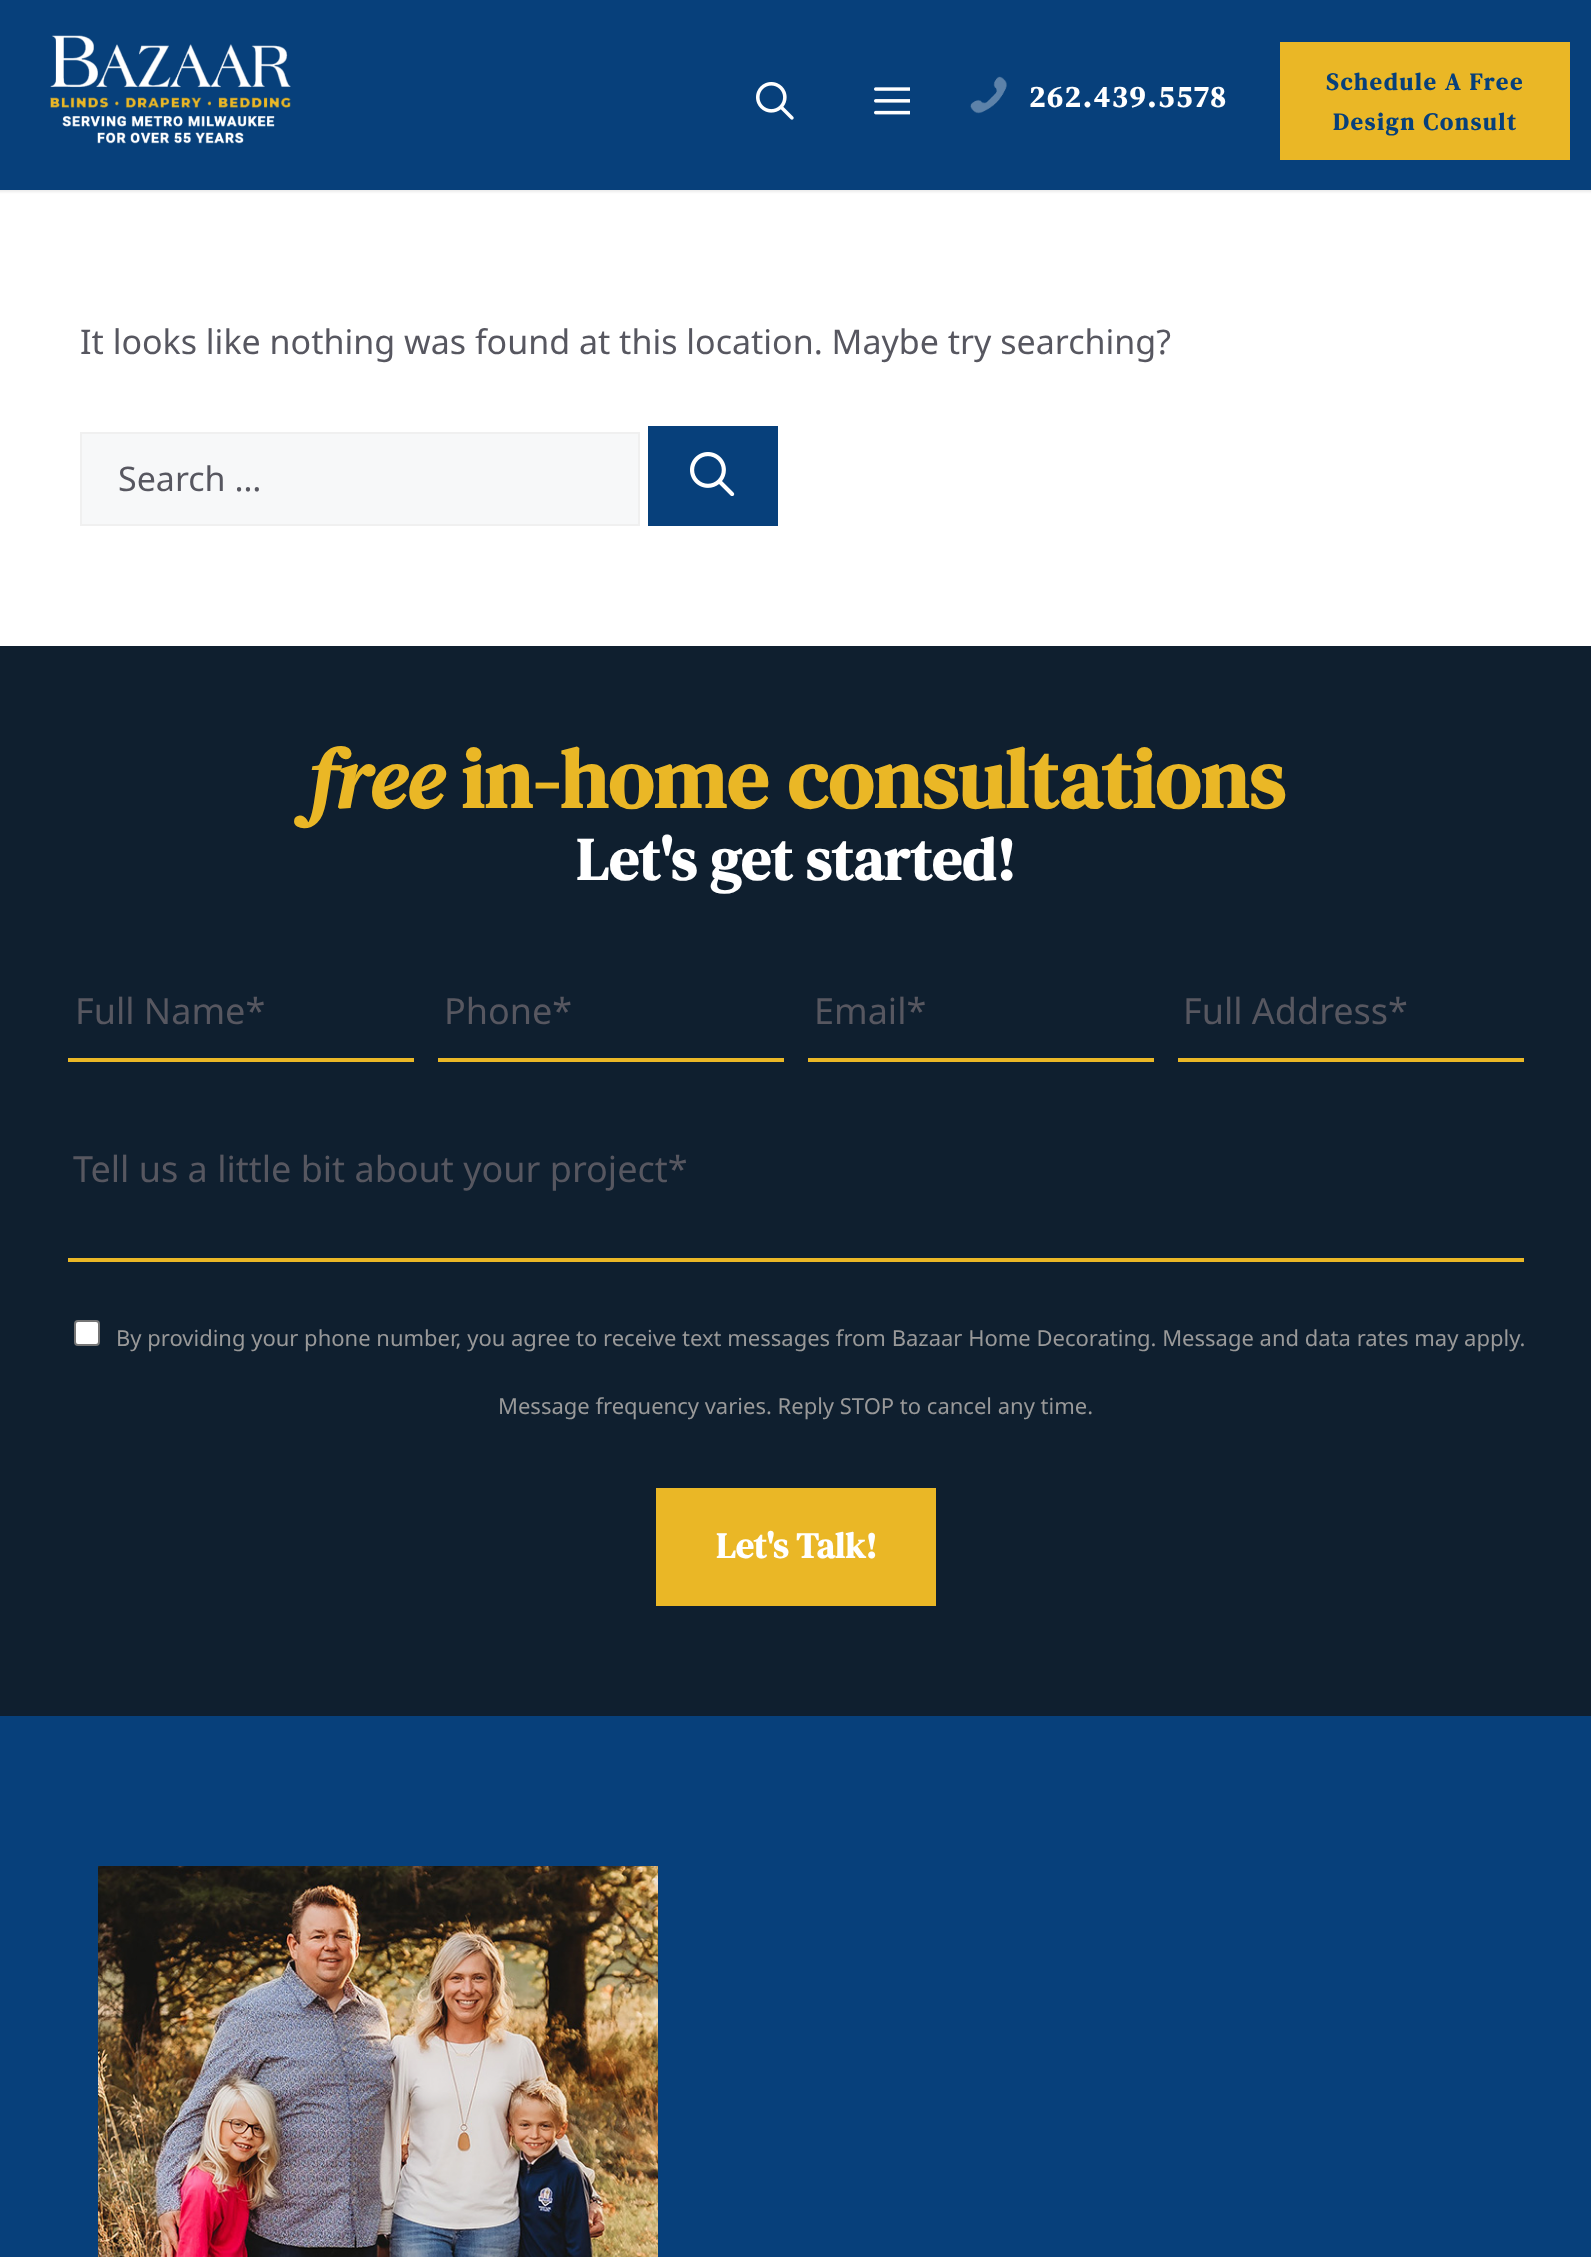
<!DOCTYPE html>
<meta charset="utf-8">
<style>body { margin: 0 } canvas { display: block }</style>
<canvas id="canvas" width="1591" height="2257"></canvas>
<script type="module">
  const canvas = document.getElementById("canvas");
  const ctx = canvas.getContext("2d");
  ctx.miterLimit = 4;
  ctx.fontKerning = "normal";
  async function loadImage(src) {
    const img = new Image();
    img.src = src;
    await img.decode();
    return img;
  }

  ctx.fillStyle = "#ffffff";
  ctx.fillRect(0, 0, 1591, 2257);
  ctx.fillStyle = "rgba(0, 0, 0, 0.08)";
  ctx.filter = "blur(1px)";
  ctx.beginPath();
  ctx.rect(-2, -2, 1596, 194);
  ctx.fill();
  ctx.filter = "none";
  ctx.fillStyle = "#07407b";
  ctx.fillRect(0, 0, 1591, 190);
  ctx.drawImage(await loadImage("img1.png"), 50, 35, 241, 109);
  ctx.drawImage(await loadImage("img2.png"), 756, 82, 38, 38);
  ctx.drawImage(await loadImage("img3.png"), 874, 87, 36, 28);
  ctx.drawImage(await loadImage("img4.png"), 970, 76, 37, 38);
  ctx.letterSpacing = "2px";
  ctx.font = "bold 30px DM Serif Text";
  ctx.fillStyle = "#ffffff";
  ctx.fillText("262.439.5578", 1029, 107);
  ctx.fillStyle = "#eab726";
  ctx.fillRect(1280, 42, 290, 118);
  ctx.font = "bold 24px DM Serif Text";
  ctx.fillStyle = "#07407b";
  ctx.fillText("Schedule A Free", 1326, 90);
  ctx.fillText("Design Consult", 1333, 130);
  ctx.letterSpacing = "0px";
  ctx.font = "34px Noto Sans";
  ctx.fillStyle = "#575760";
  ctx.fillText("It looks like nothing was found at this location. Maybe try searching?", 80, 354);
  ctx.fillStyle = "#f7f8f9";
  ctx.beginPath();
  ctx.rect(81, 433, 558, 92);
  ctx.fill();
  ctx.strokeStyle = "#f0f0f0";
  ctx.lineWidth = 2;
  ctx.stroke();
  ctx.fillStyle = "#575760";
  ctx.fillText("Search …", 118, 491);
  ctx.fillStyle = "#07407b";
  ctx.fillRect(648, 426, 130, 100);
  ctx.drawImage(await loadImage("img5.png"), 690, 452, 45, 44);
  ctx.fillStyle = "#0f1f2f";
  ctx.fillRect(0, 646, 1591, 1070);
  ctx.font = "italic bold 84px DM Serif Text";
  ctx.fillStyle = "#eab726";
  ctx.fillText("free", 307, 808);
  ctx.font = "bold 84px DM Serif Text";
  ctx.fillText("in-home consultations", 461, 808);
  ctx.font = "bold 60px DM Serif Text";
  ctx.fillStyle = "#ffffff";
  ctx.fillText("Let's get started!", 576, 880);
  ctx.fillStyle = "#eab726";
  ctx.fillRect(68, 1058, 346, 4);
  ctx.font = "36px Noto Sans";
  ctx.fillStyle = "#575760";
  ctx.fillText("Full Name*", 75, 1024);
  ctx.fillStyle = "#eab726";
  ctx.fillRect(438, 1058, 346, 4);
  ctx.fillStyle = "#575760";
  ctx.fillText("Phone*", 444, 1024);
  ctx.fillStyle = "#eab726";
  ctx.fillRect(808, 1058, 346, 4);
  ctx.fillStyle = "#575760";
  ctx.fillText("Email*", 814, 1024);
  ctx.fillStyle = "#eab726";
  ctx.fillRect(1178, 1058, 346, 4);
  ctx.fillStyle = "#575760";
  ctx.fillText("Full Address*", 1183, 1024);
  ctx.fillStyle = "#eab726";
  ctx.fillRect(68, 1258, 1456, 4);
  ctx.fillStyle = "#575760";
  ctx.fillText("Tell us a little bit about your project*", 73, 1182);
  ctx.fillStyle = "#ffffff";
  ctx.beginPath();
  ctx.roundRect(75, 1321, 24, 24, 3);
  ctx.fill();
  ctx.strokeStyle = "#767676";
  ctx.stroke();
  ctx.font = "22px Noto Sans";
  ctx.fillStyle = "#999999";
  ctx.fillText("By providing your phone number, you agree to receive text messages from Bazaar Home Decorating. Message and data rates may apply.", 116, 1346);
  ctx.fillText("Message frequency varies. Reply STOP to cancel any time.", 498, 1414);
  ctx.fillStyle = "#eab726";
  ctx.fillRect(656, 1488, 280, 118);
  ctx.font = "bold 36px DM Serif Text";
  ctx.fillStyle = "#ffffff";
  ctx.fillText("Let's Talk!", 716, 1558);
  ctx.fillStyle = "#07407b";
  ctx.fillRect(0, 1716, 1591, 541);
  ctx.drawImage(await loadImage("img6.png"), 98, 1866, 560, 391);
</script>
